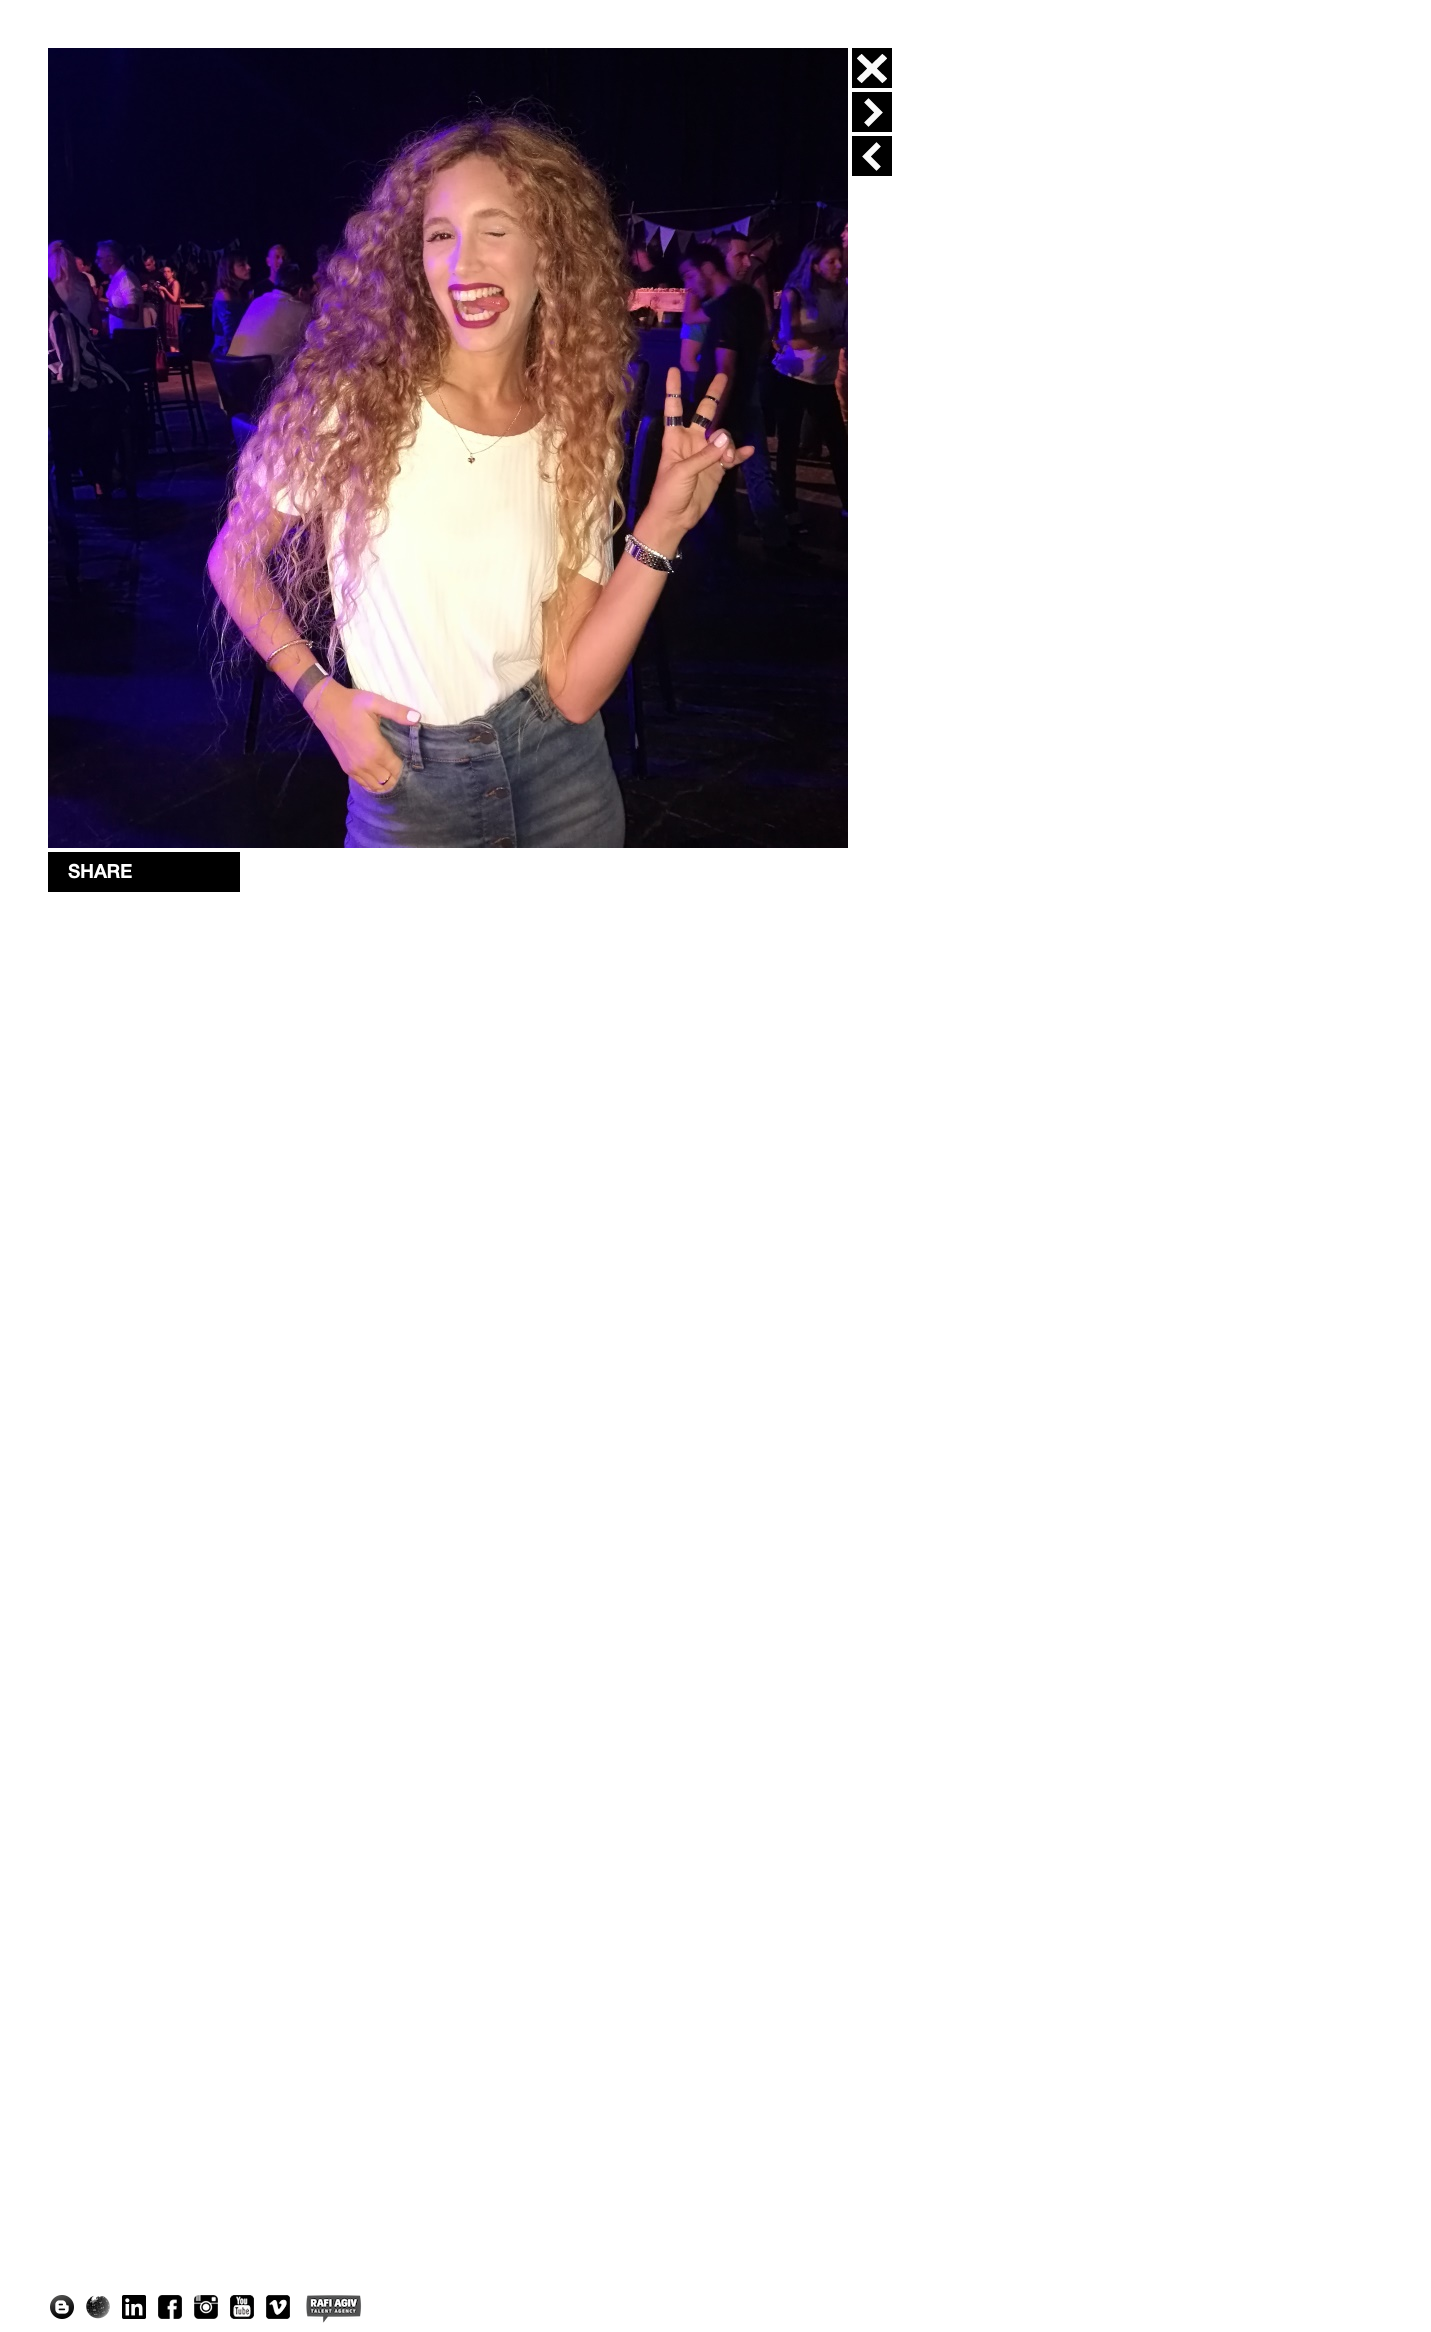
<!DOCTYPE html>
<meta charset="utf-8">
<style>body { margin: 0 } canvas { display: block }</style>
<canvas id="canvas" width="1431" height="2332"></canvas>
<script type="module">
  const canvas = document.getElementById("canvas");
  const ctx = canvas.getContext("2d");
  ctx.miterLimit = 4;
  ctx.fontKerning = "normal";
  async function loadImage(src) {
    const img = new Image();
    img.src = src;
    await img.decode();
    return img;
  }

  ctx.fillStyle = "#ffffff";
  ctx.fillRect(0, 0, 1431, 2332);
  ctx.drawImage(await loadImage("img1.png"), 852, 48, 40, 40);
  ctx.drawImage(await loadImage("img2.png"), 852, 92, 40, 40);
  ctx.drawImage(await loadImage("img3.png"), 852, 136, 40, 40);
  ctx.drawImage(await loadImage("img4.png"), 48, 48, 800, 800);
  ctx.fillStyle = "#000000";
  ctx.fillRect(48, 852, 192, 40);
  ctx.font = "bold 20px 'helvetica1'";
  ctx.fillStyle = "#ffffff";
  ctx.fillText("SHARE", 68, 878);
  ctx.drawImage(await loadImage("img5.png"), 50, 2295, 24, 24);
  ctx.drawImage(await loadImage("img6.png"), 86, 2295, 24, 24);
  ctx.drawImage(await loadImage("img7.png"), 122, 2295, 24, 24);
  ctx.drawImage(await loadImage("img8.png"), 158, 2295, 24, 24);
  ctx.drawImage(await loadImage("img9.png"), 194, 2295, 24, 24);
  ctx.drawImage(await loadImage("img10.png"), 230, 2295, 24, 24);
  ctx.drawImage(await loadImage("img11.png"), 266, 2295, 24, 24);
  ctx.drawImage(await loadImage("img12.png"), 306, 2295, 56, 28);
</script>
